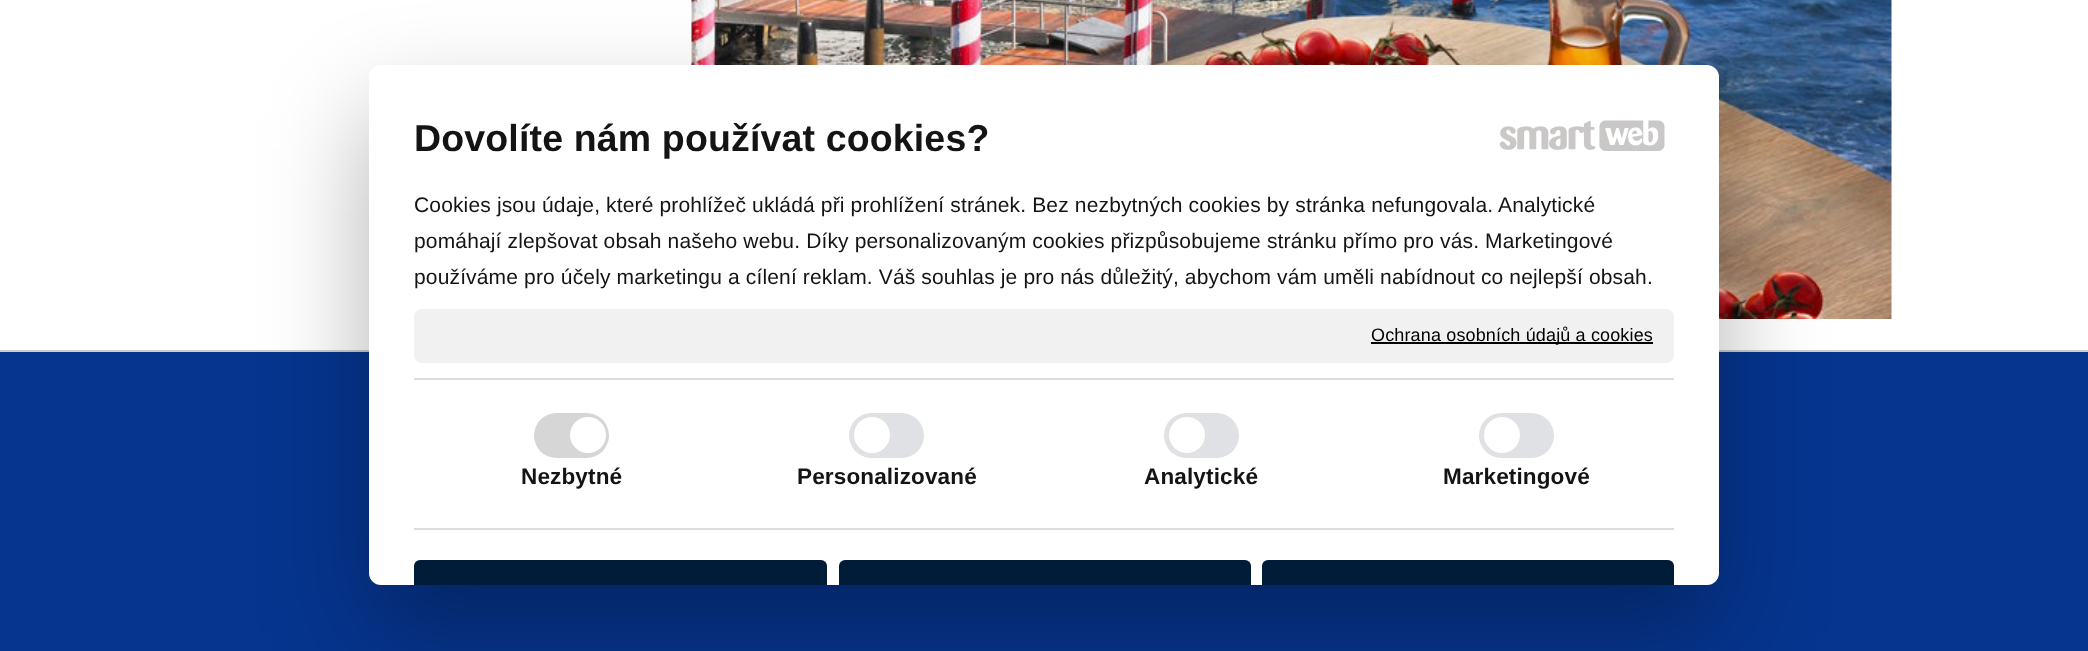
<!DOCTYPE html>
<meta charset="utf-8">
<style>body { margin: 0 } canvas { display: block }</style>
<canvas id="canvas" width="2088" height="651"></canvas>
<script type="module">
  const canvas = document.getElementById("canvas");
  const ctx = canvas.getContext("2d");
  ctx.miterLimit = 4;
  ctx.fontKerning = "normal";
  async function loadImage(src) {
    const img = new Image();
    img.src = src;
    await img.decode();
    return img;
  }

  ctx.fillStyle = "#ffffff";
  ctx.fillRect(0, 0, 2088, 651);
  ctx.drawImage(await loadImage("img1.png"), 691, 0, 1201, 319);
  ctx.fillStyle = "#06358f";
  ctx.fillRect(0, 352, 2088, 299);
  ctx.fillStyle = "#cdcdcd";
  ctx.fillRect(0, 350, 2088, 2);
  ctx.fillStyle = "rgba(0, 0, 0, 0.3)";
  ctx.filter = "blur(51px)";
  ctx.beginPath();
  ctx.roundRect(369, 113, 1350, 520, 12);
  ctx.fill();
  ctx.filter = "none";
  ctx.fillStyle = "#ffffff";
  ctx.beginPath();
  ctx.roundRect(369, 65, 1350, 520, 12);
  ctx.fill();
  ctx.letterSpacing = "0.15px";
  ctx.font = "bold 37.5px Liberation Sans";
  ctx.fillStyle = "#141414";
  ctx.fillText("Dovolíte nám používat cookies?", 414, 151);
  ctx.drawImage(await loadImage("img2.png"), 1499, 120, 97, 30);
  ctx.drawImage(await loadImage("img3.png"), 1599, 120, 66, 31);
  ctx.font = "21px Liberation Sans";
  ctx.fillText("Cookies jsou údaje, které prohlížeč ukládá při prohlížení stránek. Bez nezbytných cookies by stránka nefungovala. Analytické", 414, 212);
  ctx.fillText("pomáhají zlepšovat obsah našeho webu. Díky personalizovaným cookies přizpůsobujeme stránku přímo pro vás. Marketingové", 414, 248);
  ctx.fillText("používáme pro účely marketingu a cílení reklam. Váš souhlas je pro nás důležitý, abychom vám uměli nabídnout co nejlepší obsah.", 414, 284);
  ctx.fillStyle = "#f1f1f1";
  ctx.beginPath();
  ctx.roundRect(414, 309, 1260, 54, 8);
  ctx.fill();
  ctx.fillStyle = "#000000";
  ctx.fillRect(1371, 342, 282, 2);
  ctx.font = "18px Liberation Sans";
  ctx.fillText("Ochrana osobních údajů a cookies", 1371, 341);
  ctx.fillStyle = "#dddddd";
  ctx.fillRect(414, 378, 1260, 2);
  ctx.fillRect(414, 528, 1260, 2);
  ctx.fillStyle = "#d6d6d6";
  ctx.beginPath();
  ctx.roundRect(534, 413, 75, 45, 22.5);
  ctx.fill();
  ctx.fillStyle = "#ffffff";
  ctx.beginPath();
  ctx.arc(588, 435, 18, 0, Math.PI * 2);
  ctx.fill();
  ctx.font = "bold 22.5px Liberation Sans";
  ctx.fillStyle = "#141414";
  ctx.fillText("Nezbytné", 521, 484);
  ctx.fillStyle = "#dfe1e4";
  ctx.beginPath();
  ctx.roundRect(849, 413, 75, 45, 22.5);
  ctx.fill();
  ctx.fillStyle = "#ffffff";
  ctx.beginPath();
  ctx.arc(872, 435, 18, 0, Math.PI * 2);
  ctx.fill();
  ctx.fillStyle = "#141414";
  ctx.fillText("Personalizované", 797, 484);
  ctx.fillStyle = "#dfe1e4";
  ctx.beginPath();
  ctx.roundRect(1164, 413, 75, 45, 22.5);
  ctx.fill();
  ctx.fillStyle = "#ffffff";
  ctx.beginPath();
  ctx.arc(1187, 435, 18, 0, Math.PI * 2);
  ctx.fill();
  ctx.fillStyle = "#141414";
  ctx.fillText("Analytické", 1144, 484);
  ctx.fillStyle = "#dfe1e4";
  ctx.beginPath();
  ctx.roundRect(1479, 413, 75, 45, 22.5);
  ctx.fill();
  ctx.fillStyle = "#ffffff";
  ctx.beginPath();
  ctx.arc(1502, 435, 18, 0, Math.PI * 2);
  ctx.fill();
  ctx.fillStyle = "#141414";
  ctx.fillText("Marketingové", 1443, 484);
  ctx.fillStyle = "#011c38";
  ctx.beginPath();
  ctx.roundRect(414, 560, 413, 25, [6, 6, 0, 0]);
  ctx.fill();
  ctx.beginPath();
  ctx.roundRect(839, 560, 412, 25, [6, 6, 0, 0]);
  ctx.fill();
  ctx.beginPath();
  ctx.roundRect(1262, 560, 412, 25, [6, 6, 0, 0]);
  ctx.fill();
</script>
